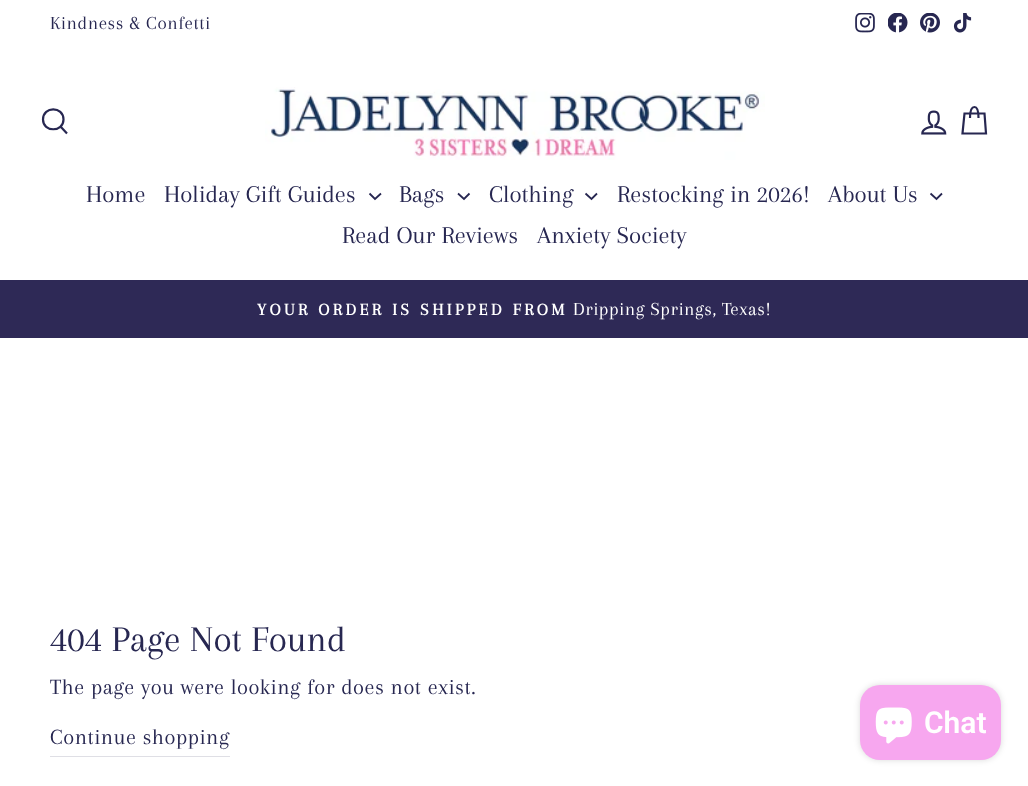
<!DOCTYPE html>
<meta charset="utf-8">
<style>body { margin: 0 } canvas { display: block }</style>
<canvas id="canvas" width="1028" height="786"></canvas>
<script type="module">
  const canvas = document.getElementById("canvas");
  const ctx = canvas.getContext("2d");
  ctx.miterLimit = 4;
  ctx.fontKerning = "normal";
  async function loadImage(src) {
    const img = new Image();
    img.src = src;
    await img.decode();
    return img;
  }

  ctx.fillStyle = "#ffffff";
  ctx.fillRect(0, 0, 1028, 786);
  ctx.letterSpacing = "0.55px";
  ctx.font = "19.1px Arapey";
  ctx.fillStyle = "#272751";
  ctx.fillText("Kindness & Confetti", 50, 29);
  ctx.drawImage(await loadImage("img1.png"), 855, 13, 20, 20);
  ctx.drawImage(await loadImage("img2.png"), 888, 13, 20, 20);
  ctx.drawImage(await loadImage("img3.png"), 920, 13, 20, 20);
  ctx.drawImage(await loadImage("img4.png"), 953, 13, 19, 20);
  ctx.beginPath();
  ctx.moveTo(63.5, 119.5);
  ctx.bezierCurveTo(63.5, 132.5, 43, 132.5, 43, 119.5);
  ctx.bezierCurveTo(43, 106, 63.5, 106, 63.5, 119.5);
  ctx.closePath();
  ctx.moveTo(67, 133.5);
  ctx.lineTo(60.5, 126.5);
  ctx.strokeStyle = "#272751";
  ctx.lineWidth = 2.2;
  ctx.stroke();
  ctx.drawImage(await loadImage("img5.png"), 265, 87, 500, 73);
  ctx.drawImage(await loadImage("img6.png"), 921, 110, 26, 25);
  ctx.beginPath();
  ctx.moveTo(970, 118);
  ctx.bezierCurveTo(970, 109.5, 972, 107, 974.5, 107);
  ctx.bezierCurveTo(976.5, 107, 978.5, 109.5, 978.5, 118);
  ctx.moveTo(964.5, 113.5);
  ctx.lineTo(984.5, 113.5);
  ctx.lineTo(986, 133.5);
  ctx.lineTo(962.5, 133.5);
  ctx.closePath();
  ctx.stroke();
  ctx.letterSpacing = "0px";
  ctx.font = "25px Arapey";
  ctx.fillText("Home", 86, 202);
  ctx.fillText("Holiday Gift Guides", 164, 202);
  ctx.beginPath();
  ctx.moveTo(369.5, 193.5);
  ctx.lineTo(375, 199);
  ctx.lineTo(381, 193.5);
  ctx.lineWidth = 1.8;
  ctx.stroke();
  ctx.fillText("Bags", 399, 202);
  ctx.beginPath();
  ctx.moveTo(458, 193.5);
  ctx.lineTo(464, 199);
  ctx.lineTo(469.5, 193.5);
  ctx.stroke();
  ctx.fillText("Clothing", 489, 202);
  ctx.beginPath();
  ctx.moveTo(585.5, 193.5);
  ctx.lineTo(591.5, 199);
  ctx.lineTo(597, 193.5);
  ctx.stroke();
  ctx.fillText("Restocking in 2026!", 617, 202);
  ctx.fillText("About Us", 828, 202);
  ctx.beginPath();
  ctx.moveTo(930.5, 193.5);
  ctx.lineTo(936.5, 199);
  ctx.lineTo(942, 193.5);
  ctx.stroke();
  ctx.fillText("Read Our Reviews", 342, 243);
  ctx.fillText("Anxiety Society", 537, 243);
  ctx.fillStyle = "#2e2956";
  ctx.fillRect(0, 280, 1028, 58);
  ctx.letterSpacing = "3.45px";
  ctx.font = "bold 17.25px Arapey";
  ctx.fillStyle = "#ffffff";
  ctx.fillText("YOUR ORDER IS SHIPPED FROM", 257, 315);
  ctx.letterSpacing = "0.55px";
  ctx.font = "19.1px Arapey";
  ctx.fillText("Dripping Springs, Texas!", 573, 315);
  ctx.letterSpacing = "0px";
  ctx.font = "37.5px Arapey";
  ctx.fillStyle = "#272751";
  ctx.fillText("404 Page Not Found", 50, 651);
  ctx.letterSpacing = "0.55px";
  ctx.font = "22.5px Arapey";
  ctx.fillText("The page you were looking for does not exist.", 50, 694);
  ctx.fillStyle = "#dfdfe5";
  ctx.fillRect(50, 756, 180, 1);
  ctx.fillStyle = "#272751";
  ctx.fillText("Continue shopping", 50, 744);
  ctx.fillStyle = "rgba(0, 0, 0, 0.15)";
  ctx.filter = "blur(3px)";
  ctx.beginPath();
  ctx.roundRect(860, 685, 141, 75, 20);
  ctx.fill();
  ctx.filter = "none";
  ctx.fillStyle = "#f7a7ef";
  ctx.beginPath();
  ctx.roundRect(860, 685, 141, 75, 20);
  ctx.fill();
  ctx.drawImage(await loadImage("img7.png"), 875, 707, 37, 37);
  ctx.letterSpacing = "0px";
  ctx.font = "600 30px Roboto";
  ctx.fillStyle = "#ffffff";
  ctx.fillText("Chat", 924, 733);
</script>
